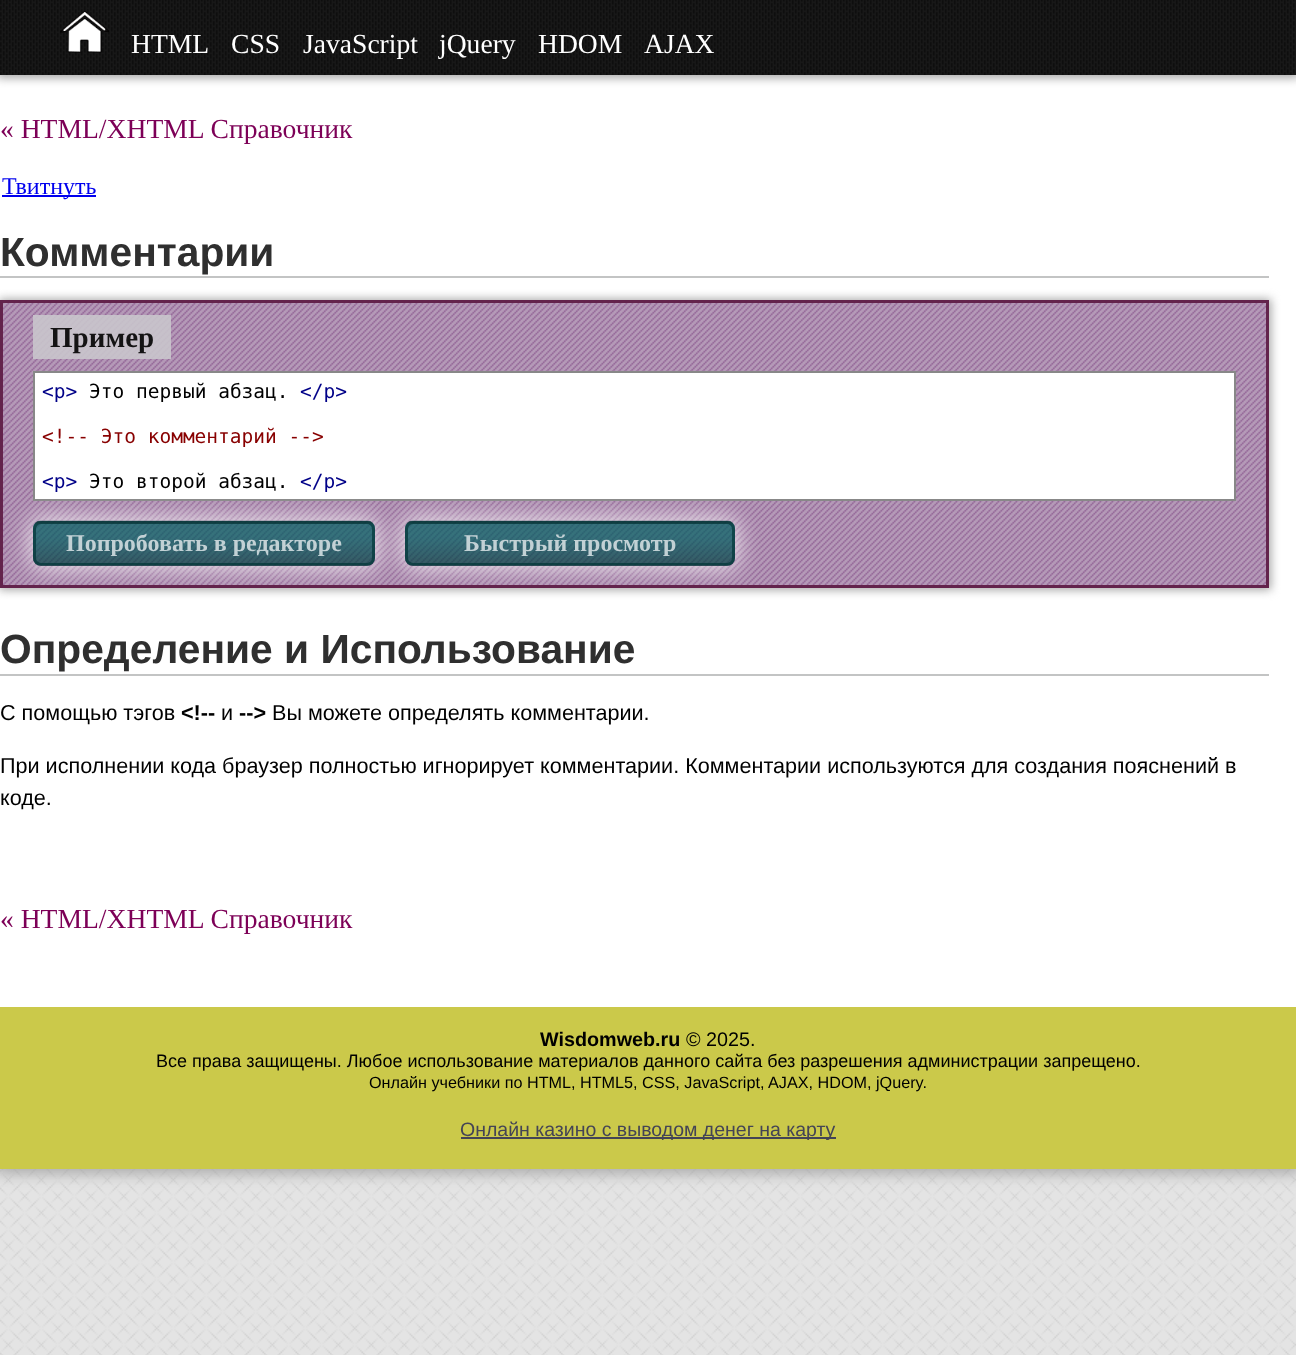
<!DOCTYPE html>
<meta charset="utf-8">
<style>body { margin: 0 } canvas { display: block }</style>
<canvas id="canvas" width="1296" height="1355"></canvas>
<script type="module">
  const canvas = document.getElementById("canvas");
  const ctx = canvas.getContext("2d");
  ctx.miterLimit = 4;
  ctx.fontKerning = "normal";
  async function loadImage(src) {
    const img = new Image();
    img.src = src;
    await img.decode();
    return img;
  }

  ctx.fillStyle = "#ffffff";
  ctx.fillRect(0, 0, 1296, 1355);
  ctx.drawImage(await loadImage("img1.png"), 0, 1169, 1296, 186);
  ctx.fillStyle = "#a6a6a6";
  ctx.filter = "blur(7.5px)";
  ctx.beginPath();
  ctx.rect(-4, -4, 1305, 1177);
  ctx.fill();
  ctx.filter = "none";
  ctx.fillStyle = "#ffffff";
  ctx.fillRect(0, 75, 1296, 932);
  ctx.fillStyle = "#a6a6a6";
  ctx.filter = "blur(5px)";
  ctx.beginPath();
  ctx.rect(-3, -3, 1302, 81);
  ctx.fill();
  ctx.filter = "none";
  ctx.drawImage(await loadImage("img2.png"), 0, 0, 1296, 75);
  ctx.drawImage(await loadImage("img3.png"), 60, 10, 49, 43);
  ctx.font = "27.6px Liberation Serif";
  ctx.fillStyle = "#ffffff";
  ctx.fillText("HTML", 131, 53);
  ctx.fillText("CSS", 231, 53);
  ctx.fillText("JavaScript", 303, 53);
  ctx.fillText("jQuery", 439, 53);
  ctx.fillText("HDOM", 538, 53);
  ctx.fillText("AJAX", 644, 53);
  ctx.fillStyle = "#7d0057";
  ctx.fillText("« HTML/XHTML Справочник", 0, 138);
  ctx.fillStyle = "#0000ee";
  ctx.fillRect(2, 195, 94, 2);
  ctx.font = "24px Liberation Serif";
  ctx.fillText("Твитнуть", 2, 194);
  ctx.fillStyle = "#c3c4c4";
  ctx.fillRect(0, 276, 1269, 2);
  ctx.font = "bold 40.75px Liberation Sans";
  ctx.fillStyle = "#2f2f2f";
  ctx.fillText("Комментарии", 0, 266);
  ctx.fillStyle = "#a6a6a6";
  ctx.filter = "blur(5px)";
  ctx.beginPath();
  ctx.rect(-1, 299, 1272, 291);
  ctx.fill();
  ctx.filter = "none";
  ctx.drawImage(await loadImage("img4.png"), 3, 303, 1263, 282);
  ctx.strokeStyle = "#63234c";
  ctx.lineWidth = 3;
  ctx.strokeRect(1.5, 301.5, 1266, 285);
  ctx.fillStyle = "rgba(201, 197, 204, 0.9)";
  ctx.fillRect(33, 315, 138, 44);
  ctx.font = "bold 29px Liberation Serif";
  ctx.fillStyle = "#141314";
  ctx.fillText("Пример", 50, 347);
  ctx.fillStyle = "#ffffff";
  ctx.beginPath();
  ctx.rect(34, 372, 1201, 128);
  ctx.fill();
  ctx.strokeStyle = "#888888";
  ctx.lineWidth = 2;
  ctx.stroke();
  ctx.font = "19.5px DejaVu Sans Mono";
  ctx.fillStyle = "#000088";
  ctx.fillText("<p>", 42, 398);
  ctx.fillStyle = "#000000";
  ctx.fillText("Это первый абзац.", 89, 398);
  ctx.fillStyle = "#000088";
  ctx.fillText("<\/p>", 300, 398);
  ctx.fillStyle = "#880000";
  ctx.fillText("<\!-- Это комментарий -->", 42, 443);
  ctx.fillStyle = "#000088";
  ctx.fillText("<p>", 42, 488);
  ctx.fillStyle = "#000000";
  ctx.fillText("Это второй абзац.", 89, 488);
  ctx.fillStyle = "#000088";
  ctx.fillText("<\/p>", 300, 488);
  ctx.save();
  ctx.beginPath();
  ctx.rect(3, 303, 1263, 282);
  ctx.clip();
  ctx.beginPath();
  ctx.moveTo(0, 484);
  ctx.lineTo(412, 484);
  ctx.lineTo(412, 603);
  ctx.lineTo(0, 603);
  ctx.closePath();
  ctx.moveTo(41, 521);
  ctx.lineTo(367, 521);
  ctx.bezierCurveTo(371.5, 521, 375, 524.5, 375, 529);
  ctx.lineTo(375, 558);
  ctx.bezierCurveTo(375, 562.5, 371.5, 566, 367, 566);
  ctx.lineTo(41, 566);
  ctx.bezierCurveTo(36.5, 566, 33, 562.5, 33, 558);
  ctx.lineTo(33, 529);
  ctx.bezierCurveTo(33, 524.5, 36.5, 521, 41, 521);
  ctx.closePath();
  ctx.clip("evenodd");
  ctx.fillStyle = "rgba(255, 255, 255, 0.7)";
  ctx.filter = "blur(11px)";
  ctx.beginPath();
  ctx.roundRect(30, 518, 348, 51, 11);
  ctx.fill();
  ctx.filter = "none";
  ctx.restore();
  ctx.drawImage(await loadImage("img5.png"), 33, 520, 342, 46);
  ctx.beginPath();
  ctx.roundRect(34.5, 522.5, 339, 42, 6.5);
  ctx.strokeStyle = "rgba(1, 54, 55, 0.7)";
  ctx.lineWidth = 3;
  ctx.stroke();
  ctx.font = "bold 24px Liberation Serif";
  ctx.fillStyle = "#c2d1d5";
  ctx.fillText("Попробовать в редакторе", 66, 551);
  ctx.save();
  ctx.beginPath();
  ctx.rect(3, 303, 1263, 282);
  ctx.clip();
  ctx.beginPath();
  ctx.moveTo(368, 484);
  ctx.lineTo(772, 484);
  ctx.lineTo(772, 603);
  ctx.lineTo(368, 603);
  ctx.closePath();
  ctx.moveTo(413, 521);
  ctx.lineTo(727, 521);
  ctx.bezierCurveTo(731.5, 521, 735, 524.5, 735, 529);
  ctx.lineTo(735, 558);
  ctx.bezierCurveTo(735, 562.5, 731.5, 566, 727, 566);
  ctx.lineTo(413, 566);
  ctx.bezierCurveTo(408.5, 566, 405, 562.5, 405, 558);
  ctx.lineTo(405, 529);
  ctx.bezierCurveTo(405, 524.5, 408.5, 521, 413, 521);
  ctx.closePath();
  ctx.clip("evenodd");
  ctx.fillStyle = "rgba(255, 255, 255, 0.7)";
  ctx.filter = "blur(11px)";
  ctx.beginPath();
  ctx.roundRect(402, 518, 336, 51, 11);
  ctx.fill();
  ctx.filter = "none";
  ctx.restore();
  ctx.drawImage(await loadImage("img6.png"), 405, 520, 330, 46);
  ctx.beginPath();
  ctx.roundRect(406.5, 522.5, 327, 42, 6.5);
  ctx.stroke();
  ctx.fillText("Быстрый просмотр", 464, 551);
  ctx.fillStyle = "#c3c4c4";
  ctx.fillRect(0, 674, 1269, 2);
  ctx.font = "bold 40.75px Liberation Sans";
  ctx.fillStyle = "#2f2f2f";
  ctx.fillText("Определение и Использование", 0, 663);
  ctx.font = "21.6px Liberation Sans";
  ctx.fillStyle = "#000000";
  ctx.fillText("С помощью тэгов", 0, 720);
  ctx.font = "bold 21.6px Liberation Sans";
  ctx.fillText("<\!--", 181, 720);
  ctx.font = "21.6px Liberation Sans";
  ctx.fillText("и", 221, 720);
  ctx.font = "bold 21.6px Liberation Sans";
  ctx.fillText("-->", 239, 720);
  ctx.font = "21.6px Liberation Sans";
  ctx.fillText("Вы можете определять комментарии.", 272, 720);
  ctx.fillText("При исполнении кода браузер полностью игнорирует комментарии. Комментарии используются для создания пояснений в", 0, 773);
  ctx.fillText("коде.", 0, 805);
  ctx.font = "27.6px Liberation Serif";
  ctx.fillStyle = "#7d0057";
  ctx.fillText("« HTML/XHTML Справочник", 0, 928);
  ctx.fillStyle = "#cbc94a";
  ctx.fillRect(0, 1007, 1296, 162);
  ctx.font = "bold 19.75px Liberation Sans";
  ctx.fillStyle = "#000000";
  ctx.fillText("Wisdomweb.ru", 540, 1046);
  ctx.font = "19.75px Liberation Sans";
  ctx.fillText("© 2025.", 686, 1046);
  ctx.font = "18px Liberation Sans";
  ctx.fillText("Все права защищены. Любое использование материалов данного сайта без разрешения администрации запрещено.", 156, 1067);
  ctx.font = "16.2px Liberation Sans";
  ctx.fillText("Онлайн учебники по HTML, HTML5, CSS, JavaScript, AJAX, HDOM, jQuery.", 369, 1088);
  ctx.fillStyle = "#444455";
  ctx.fillRect(461, 1137, 375, 2);
  ctx.font = "19.5px Liberation Sans";
  ctx.fillText("Онлайн казино с выводом денег на карту", 460, 1136);
</script>
